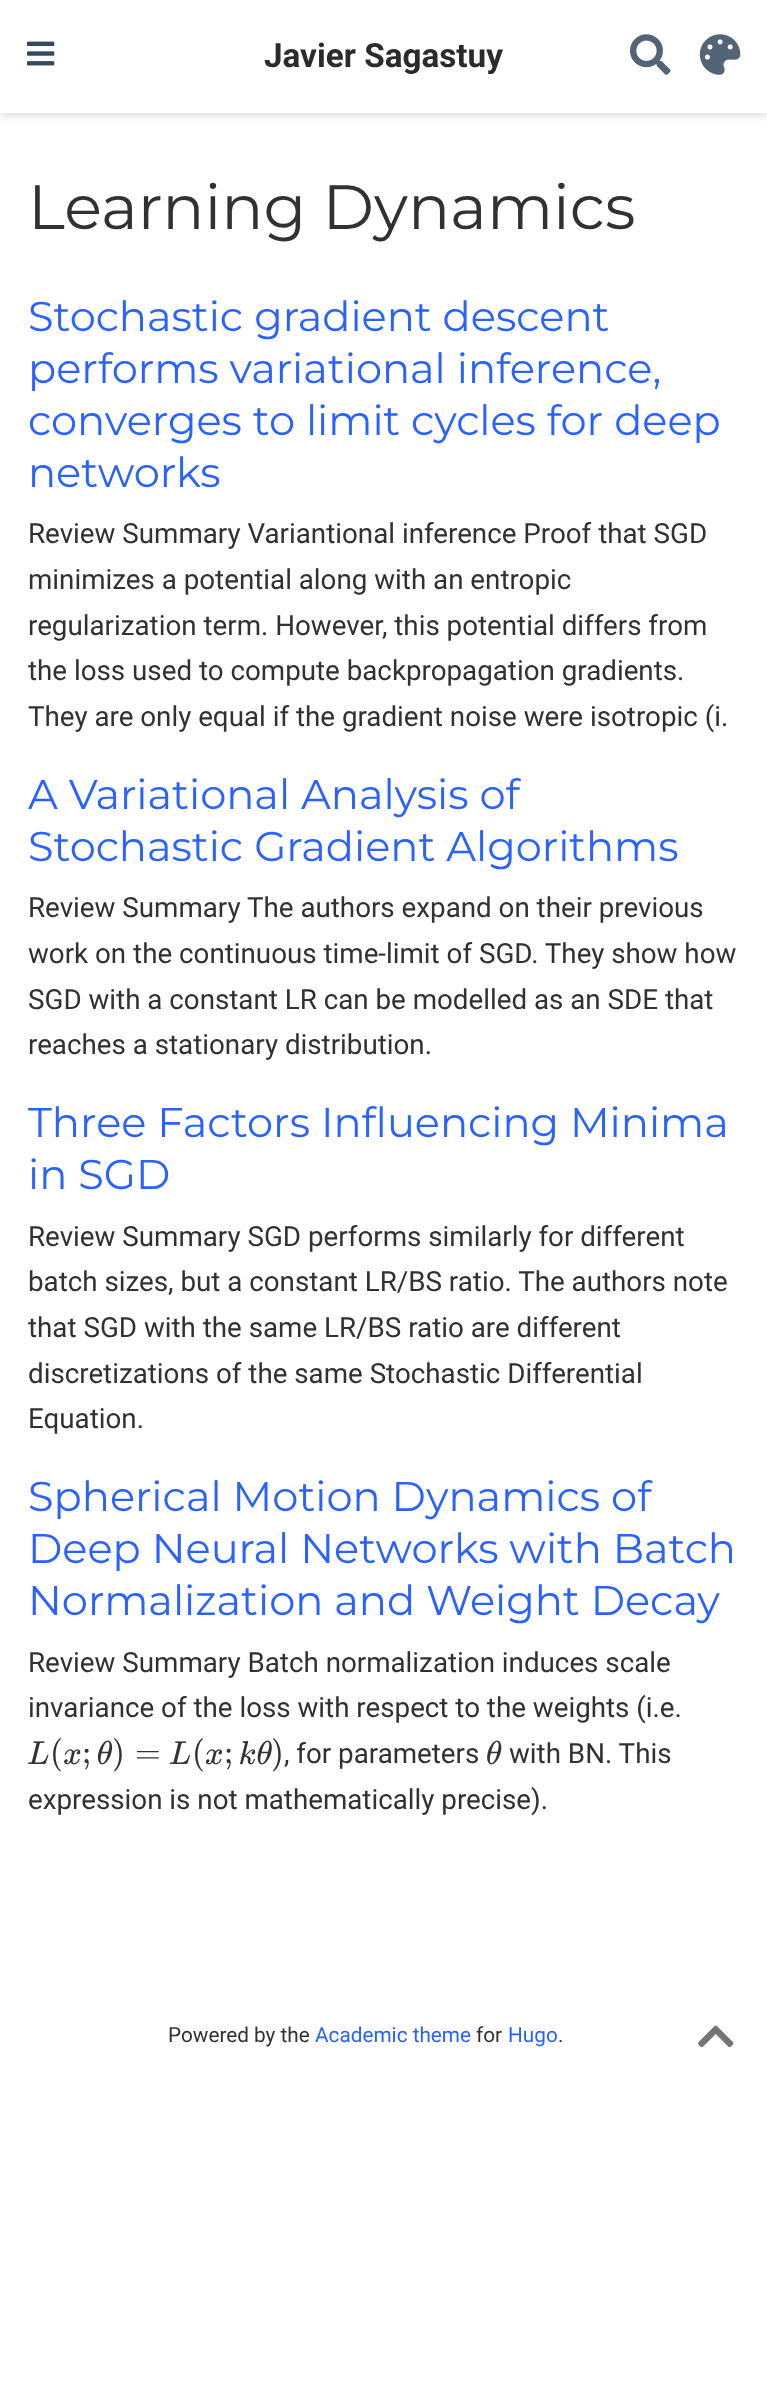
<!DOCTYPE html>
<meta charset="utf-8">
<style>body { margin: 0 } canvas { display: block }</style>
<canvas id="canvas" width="767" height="2390"></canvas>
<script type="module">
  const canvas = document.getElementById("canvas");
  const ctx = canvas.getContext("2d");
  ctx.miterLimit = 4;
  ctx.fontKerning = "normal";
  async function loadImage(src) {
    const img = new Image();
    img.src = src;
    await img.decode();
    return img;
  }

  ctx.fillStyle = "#ffffff";
  ctx.fillRect(0, 0, 767, 2390);
  ctx.fillStyle = "rgba(0, 0, 0, 0.11)";
  ctx.filter = "blur(3.5px)";
  ctx.beginPath();
  ctx.rect(0, 5, 767, 112);
  ctx.fill();
  ctx.filter = "none";
  ctx.fillStyle = "#ffffff";
  ctx.fillRect(0, 0, 767, 113);
  ctx.drawImage(await loadImage("img1.png"), 27, 41, 28, 25);
  ctx.font = "bold 33.25px Roboto";
  ctx.fillStyle = "#2b2b2b";
  ctx.fillText("Javier Sagastuy", 264, 67);
  ctx.drawImage(await loadImage("img2.png"), 630, 34, 41, 41);
  ctx.drawImage(await loadImage("img3.png"), 699, 34, 42, 41);
  ctx.font = "62.4px Montserrat";
  ctx.fillStyle = "#313131";
  ctx.fillText("Learning Dynamics", 28, 229);
  ctx.font = "41.6px Montserrat";
  ctx.fillStyle = "#2962ff";
  ctx.fillText("Stochastic gradient descent", 28, 331);
  ctx.fillText("performs variational inference,", 28, 383);
  ctx.fillText("converges to limit cycles for deep", 28, 435);
  ctx.fillText("networks", 28, 487);
  ctx.font = "27.75px Roboto";
  ctx.fillStyle = "#313131";
  ctx.fillText("Review Summary Variantional inference Proof that SGD", 28, 543);
  ctx.fillText("minimizes a potential along with an entropic", 28, 589);
  ctx.fillText("regularization term. However, this potential differs from", 28, 635);
  ctx.fillText("the loss used to compute backpropagation gradients.", 28, 680);
  ctx.fillText("They are only equal if the gradient noise were isotropic (i.", 28, 726);
  ctx.font = "41.6px Montserrat";
  ctx.fillStyle = "#2962ff";
  ctx.fillText("A Variational Analysis of", 28, 809);
  ctx.fillText("Stochastic Gradient Algorithms", 28, 861);
  ctx.font = "27.75px Roboto";
  ctx.fillStyle = "#313131";
  ctx.fillText("Review Summary The authors expand on their previous", 28, 917);
  ctx.fillText("work on the continuous time-limit of SGD. They show how", 28, 963);
  ctx.fillText("SGD with a constant LR can be modelled as an SDE that", 28, 1009);
  ctx.fillText("reaches a stationary distribution.", 28, 1054);
  ctx.font = "41.6px Montserrat";
  ctx.fillStyle = "#2962ff";
  ctx.fillText("Three Factors Influencing Minima", 28, 1137);
  ctx.fillText("in SGD", 28, 1189);
  ctx.font = "27.75px Roboto";
  ctx.fillStyle = "#313131";
  ctx.fillText("Review Summary SGD performs similarly for different", 28, 1246);
  ctx.fillText("batch sizes, but a constant LR/BS ratio. The authors note", 28, 1291);
  ctx.fillText("that SGD with the same LR/BS ratio are different", 28, 1337);
  ctx.fillText("discretizations of the same Stochastic Differential", 28, 1383);
  ctx.fillText("Equation.", 28, 1428);
  ctx.font = "41.6px Montserrat";
  ctx.fillStyle = "#2962ff";
  ctx.fillText("Spherical Motion Dynamics of", 28, 1511);
  ctx.fillText("Deep Neural Networks with Batch", 28, 1563);
  ctx.fillText("Normalization and Weight Decay", 28, 1615);
  ctx.font = "27.75px Roboto";
  ctx.fillStyle = "#313131";
  ctx.fillText("Review Summary Batch normalization induces scale", 28, 1672);
  ctx.fillText("invariance of the loss with respect to the weights (i.e.", 28, 1717);
  ctx.drawImage(await loadImage("img4.png"), 28, 1741, 21, 23);
  ctx.font = "33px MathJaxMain";
  ctx.fillText("(", 50, 1763);
  ctx.drawImage(await loadImage("img5.png"), 64, 1749, 17, 16);
  ctx.fillText(";", 82, 1763);
  ctx.drawImage(await loadImage("img6.png"), 97, 1740, 16, 25);
  ctx.fillText(")", 112, 1763);
  ctx.fillText("=", 135, 1763);
  ctx.drawImage(await loadImage("img7.png"), 169, 1741, 22, 23);
  ctx.fillText("(", 192, 1763);
  ctx.drawImage(await loadImage("img8.png"), 205, 1749, 17, 16);
  ctx.fillText(";", 224, 1763);
  ctx.drawImage(await loadImage("img9.png"), 240, 1741, 16, 24);
  ctx.drawImage(await loadImage("img10.png"), 257, 1740, 15, 25);
  ctx.fillText(")", 271, 1763);
  ctx.font = "27.75px Roboto";
  ctx.fillText(", for parameters", 284, 1763);
  ctx.drawImage(await loadImage("img11.png"), 487, 1740, 15, 25);
  ctx.fillText("with BN. This", 509, 1763);
  ctx.fillText("expression is not mathematically precise).", 28, 1809);
  ctx.font = "20.75px Roboto";
  ctx.fillText("Powered by the", 168, 2042);
  ctx.fillStyle = "#2962ff";
  ctx.fillText("Academic theme", 315, 2042);
  ctx.fillStyle = "#313131";
  ctx.fillText("for", 476, 2042);
  ctx.fillStyle = "#2962ff";
  ctx.fillText("Hugo", 508, 2042);
  ctx.fillStyle = "#313131";
  ctx.fillText(".", 558, 2042);
  ctx.drawImage(await loadImage("img12.png"), 698, 2025, 36, 23);
</script>
